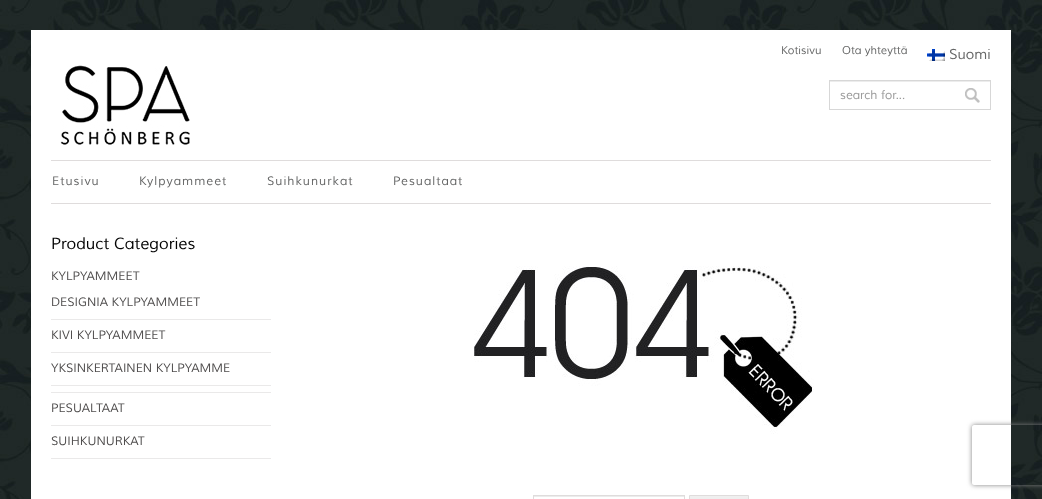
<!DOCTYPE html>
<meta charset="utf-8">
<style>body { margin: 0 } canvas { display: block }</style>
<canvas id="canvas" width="1042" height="499"></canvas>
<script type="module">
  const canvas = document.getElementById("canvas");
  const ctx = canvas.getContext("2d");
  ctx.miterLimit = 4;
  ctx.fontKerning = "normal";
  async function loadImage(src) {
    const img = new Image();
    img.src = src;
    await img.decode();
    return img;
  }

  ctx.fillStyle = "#ffffff";
  ctx.fillRect(0, 0, 1042, 499);
  ctx.drawImage(await loadImage("img1.png"), 0, 0, 1042, 499);
  ctx.fillRect(31, 30, 980, 469);
  ctx.drawImage(await loadImage("img2.png"), 60, 65, 130, 80);
  ctx.font = "italic 11px Muli";
  ctx.fillStyle = "#666767";
  ctx.fillText("Kotisivu", 781, 54);
  ctx.fillText("Ota yhteyttä", 842, 54);
  ctx.drawImage(await loadImage("img3.png"), 927, 49, 18, 12);
  ctx.font = "italic 14px Muli";
  ctx.fillText("Suomi", 949, 59);
  ctx.drawImage(await loadImage("img4.png"), 965, 88, 15, 15);
  ctx.fillStyle = "#ececec";
  ctx.fillRect(830, 81, 160, 1);
  ctx.strokeStyle = "#d7d7d7";
  ctx.strokeRect(829.5, 80.5, 161, 29);
  ctx.font = "italic 12px Muli";
  ctx.fillStyle = "#999999";
  ctx.fillText("search for...", 840, 99);
  ctx.fillStyle = "#dfdcdc";
  ctx.fillRect(51, 160, 940, 1);
  ctx.fillRect(51, 203, 940, 1);
  ctx.letterSpacing = "1px";
  ctx.fillStyle = "#666767";
  ctx.fillText("Etusivu", 52, 185);
  ctx.fillText("Kylpyammeet", 139, 185);
  ctx.fillText("Suihkunurkat", 267, 185);
  ctx.fillText("Pesualtaat", 393, 185);
  ctx.letterSpacing = "0px";
  ctx.font = "italic 16px Muli";
  ctx.fillStyle = "#030303";
  ctx.fillText("Product Categories", 51, 249);
  ctx.fillStyle = "#eae9e9";
  ctx.fillRect(51, 392, 220, 1);
  ctx.font = "italic 12px Muli";
  ctx.fillStyle = "#4f4d4d";
  ctx.fillText("KYLPYAMMEET", 51, 280);
  ctx.fillStyle = "#eae9e9";
  ctx.fillRect(51, 319, 220, 1);
  ctx.fillStyle = "#4f4d4d";
  ctx.fillText("DESIGNIA KYLPYAMMEET", 51, 306);
  ctx.fillStyle = "#eae9e9";
  ctx.fillRect(51, 352, 220, 1);
  ctx.fillStyle = "#4f4d4d";
  ctx.fillText("KIVI KYLPYAMMEET", 51, 339);
  ctx.fillStyle = "#eae9e9";
  ctx.fillRect(51, 385, 220, 1);
  ctx.fillStyle = "#4f4d4d";
  ctx.fillText("YKSINKERTAINEN KYLPYAMME", 51, 372);
  ctx.fillStyle = "#eae9e9";
  ctx.fillRect(51, 425, 220, 1);
  ctx.fillStyle = "#4f4d4d";
  ctx.fillText("PESUALTAAT", 51, 412);
  ctx.fillStyle = "#eae9e9";
  ctx.fillRect(51, 458, 220, 1);
  ctx.fillStyle = "#4f4d4d";
  ctx.fillText("SUIHKUNURKAT", 51, 445);
  ctx.drawImage(await loadImage("img5.png"), 474, 266, 340, 168);
  ctx.fillStyle = "#ececec";
  ctx.fillRect(534, 496, 150, 1);
  ctx.strokeStyle = "#dfdcdc";
  ctx.strokeRect(533.5, 495.5, 151, 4);
  ctx.fillStyle = "#efefef";
  ctx.beginPath();
  ctx.rect(689.5, 495.5, 59, 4);
  ctx.fill();
  ctx.stroke();
  ctx.save();
  ctx.beginPath();
  ctx.moveTo(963, 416);
  ctx.lineTo(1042, 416);
  ctx.lineTo(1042, 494);
  ctx.lineTo(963, 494);
  ctx.closePath();
  ctx.moveTo(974, 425);
  ctx.lineTo(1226, 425);
  ctx.bezierCurveTo(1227, 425, 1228, 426, 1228, 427);
  ctx.lineTo(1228, 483);
  ctx.bezierCurveTo(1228, 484, 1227, 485, 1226, 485);
  ctx.lineTo(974, 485);
  ctx.bezierCurveTo(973, 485, 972, 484, 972, 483);
  ctx.lineTo(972, 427);
  ctx.bezierCurveTo(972, 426, 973, 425, 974, 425);
  ctx.closePath();
  ctx.clip("evenodd");
  ctx.fillStyle = "#808080";
  ctx.filter = "blur(2.5px)";
  ctx.beginPath();
  ctx.roundRect(972, 425, 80, 60, 2);
  ctx.fill();
  ctx.filter = "none";
  ctx.restore();
</script>
